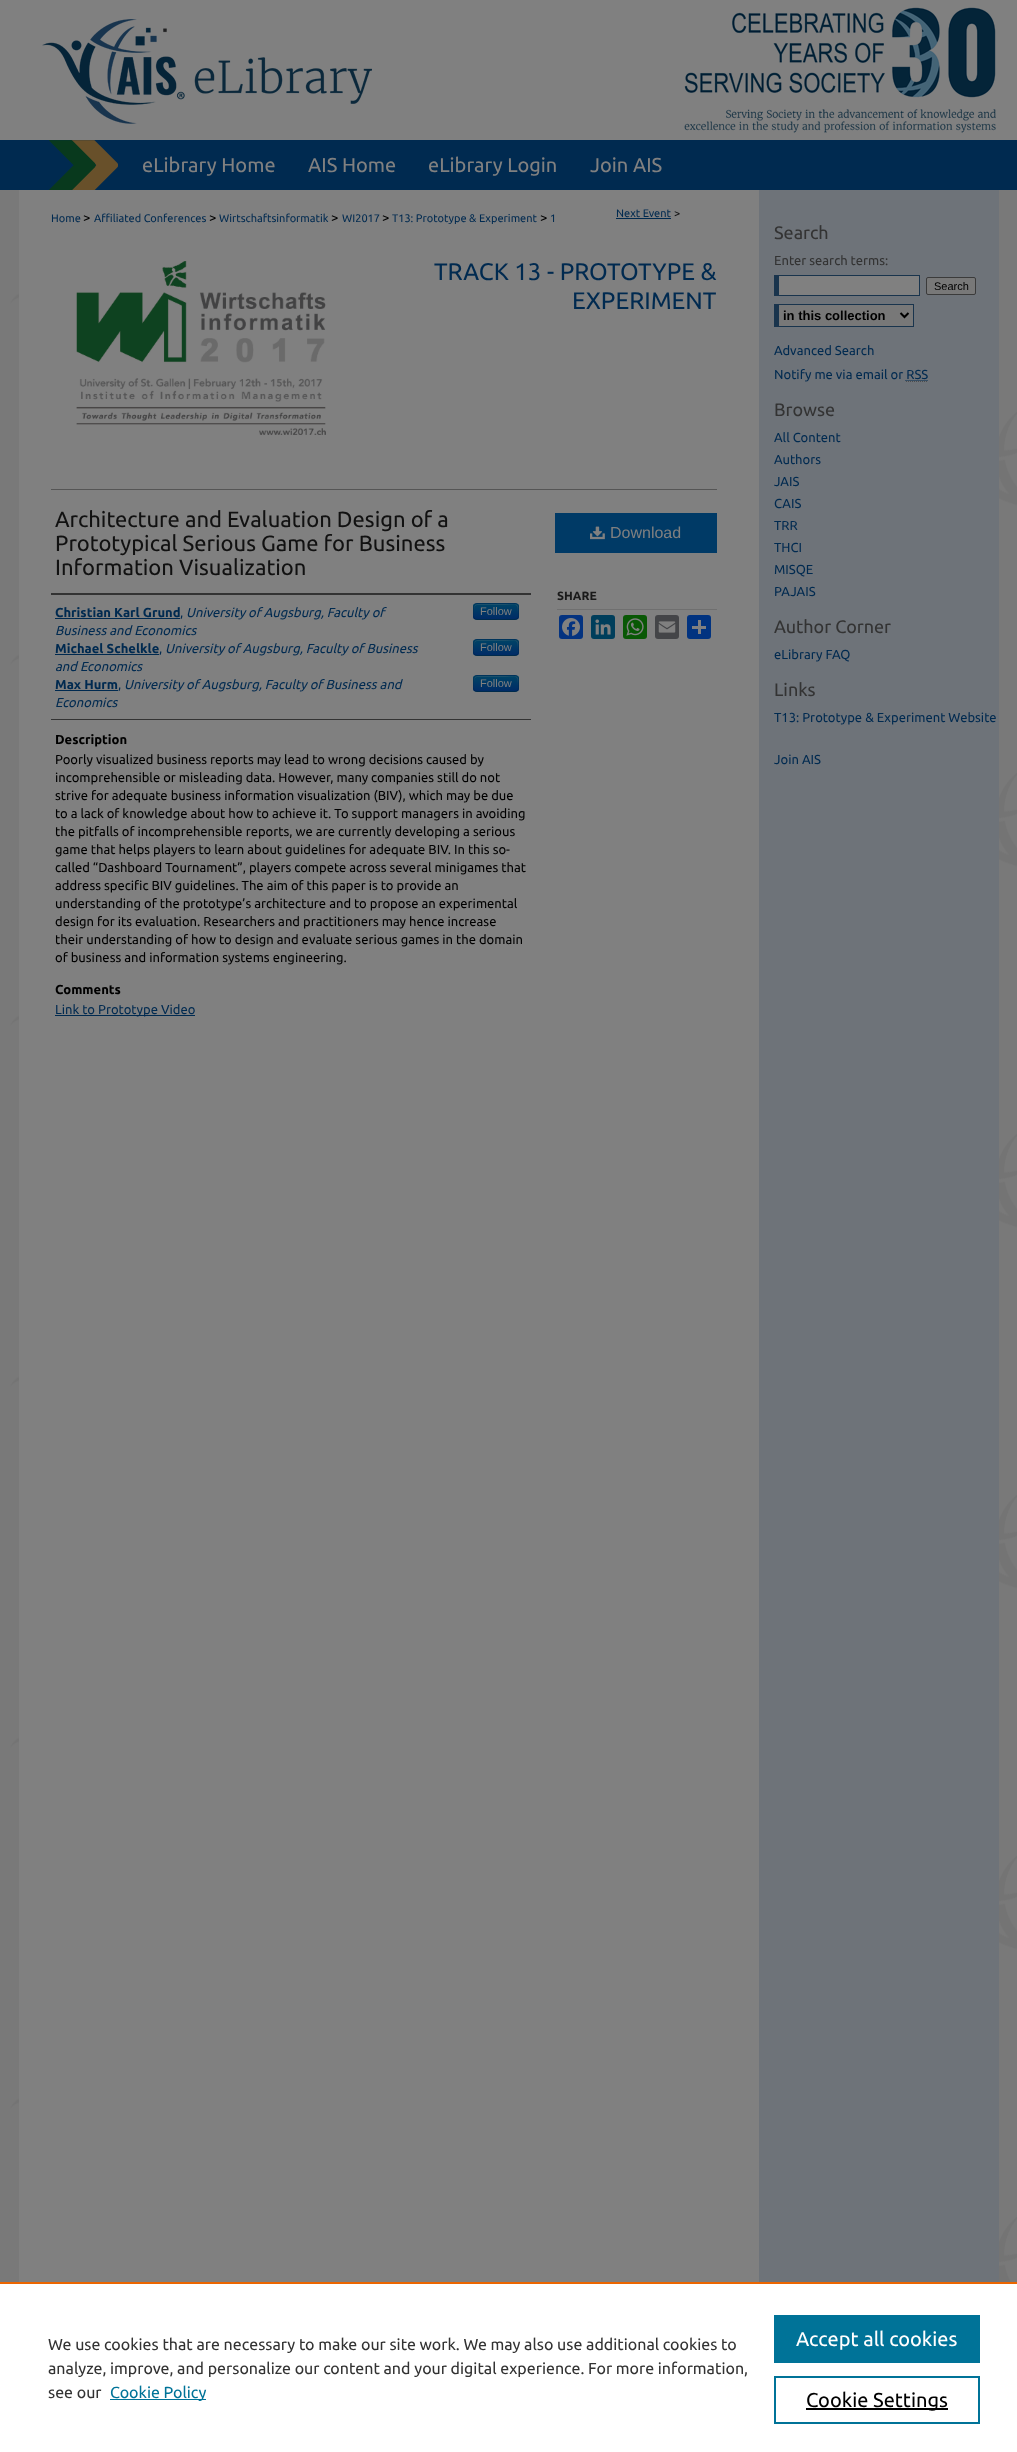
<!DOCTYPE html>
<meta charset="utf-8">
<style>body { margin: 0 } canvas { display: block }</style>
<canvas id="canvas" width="1017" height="2452"></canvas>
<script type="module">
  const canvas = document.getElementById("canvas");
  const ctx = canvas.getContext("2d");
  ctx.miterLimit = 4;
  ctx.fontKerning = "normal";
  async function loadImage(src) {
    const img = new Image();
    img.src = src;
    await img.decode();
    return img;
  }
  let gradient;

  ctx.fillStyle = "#ffffff";
  ctx.fillRect(0, 0, 1017, 2452);
  ctx.drawImage(await loadImage("img1.png"), 0, 0, 1017, 2282);
  ctx.drawImage(await loadImage("img2.png"), 42, 7, 954, 126);
  ctx.drawImage(await loadImage("img3.png"), 49, 140, 69, 50);
  ctx.font = "20px Ubuntu";
  ctx.fillStyle = "#808080";
  ctx.fillText("eLibrary Home", 142, 172);
  ctx.fillText("AIS Home", 308, 172);
  ctx.fillText("eLibrary Login", 428, 172);
  ctx.fillText("Join AIS", 590, 172);
  ctx.drawImage(await loadImage("img4.png"), 19, 190, 980, 2092);
  ctx.font = "11px Ubuntu";
  ctx.fillStyle = "#002a50";
  ctx.fillText("Home", 51, 222);
  ctx.font = "13px Ubuntu";
  ctx.fillStyle = "#000000";
  ctx.fillText(">", 83, 222);
  ctx.font = "11px Ubuntu";
  ctx.fillStyle = "#002a50";
  ctx.fillText("Affiliated Conferences", 94, 222);
  ctx.font = "13px Ubuntu";
  ctx.fillStyle = "#000000";
  ctx.fillText(">", 209, 222);
  ctx.font = "11px Ubuntu";
  ctx.fillStyle = "#002a50";
  ctx.fillText("Wirtschaftsinformatik", 219, 222);
  ctx.font = "13px Ubuntu";
  ctx.fillStyle = "#000000";
  ctx.fillText(">", 331, 222);
  ctx.font = "11px Ubuntu";
  ctx.fillStyle = "#002a50";
  ctx.fillText("WI2017", 342, 222);
  ctx.font = "13px Ubuntu";
  ctx.fillStyle = "#000000";
  ctx.fillText(">", 382, 222);
  ctx.font = "11px Ubuntu";
  ctx.fillStyle = "#002a50";
  ctx.fillText("T13: Prototype & Experiment", 392, 222);
  ctx.font = "13px Ubuntu";
  ctx.fillStyle = "#000000";
  ctx.fillText(">", 540, 222);
  ctx.font = "11px Ubuntu";
  ctx.fillStyle = "#002a50";
  ctx.fillText("1", 550, 222);
  ctx.fillText("Next Event", 616, 217);
  ctx.fillRect(616, 218, 55, 1);
  ctx.fillStyle = "#111111";
  ctx.fillText(">", 674, 217);
  ctx.drawImage(await loadImage("img5.png"), 76, 261, 250, 174);
  ctx.font = "24px Ubuntu";
  ctx.fillStyle = "#002a50";
  ctx.fillText("TRACK 13 - PROTOTYPE &", 434, 280);
  ctx.fillText("EXPERIMENT", 572, 309);
  ctx.fillStyle = "#555555";
  ctx.fillRect(51, 489, 666, 1);
  ctx.font = "22px Ubuntu";
  ctx.fillStyle = "#111111";
  ctx.fillText("Architecture and Evaluation Design of a", 55, 527);
  ctx.fillText("Prototypical Serious Game for Business", 55, 551);
  ctx.fillText("Information Visualization", 55, 575);
  ctx.fillStyle = "#333333";
  ctx.fillRect(51, 593, 480, 2);
  ctx.fillRect(51, 719, 480, 1);
  ctx.font = "bold 13px Ubuntu";
  ctx.fillStyle = "#002a50";
  ctx.fillText("Christian Karl Grund", 55, 617);
  ctx.fillRect(55, 618, 125, 1);
  ctx.font = "13px Ubuntu";
  ctx.fillText(",", 180, 617);
  ctx.font = "italic 13px Ubuntu";
  ctx.fillText("University of Augsburg, Faculty of", 186, 617);
  ctx.fillText("Business and Economics", 55, 635);
  ctx.fillStyle = "#003a66";
  ctx.beginPath();
  ctx.roundRect(473, 603, 46, 17, 4);
  ctx.fill();
  ctx.save();
  ctx.beginPath();
  ctx.roundRect(473, 603, 46, 17, 4);
  ctx.clip();
  gradient = ctx.createLinearGradient(496, 604, 496, 619);
  gradient.addColorStop(0, "#004466");
  gradient.addColorStop(1, "#002b66");
  ctx.fillStyle = gradient;
  ctx.fillRect(473, 604, 46, 15);
  ctx.restore();
  ctx.fillStyle = "rgba(128, 128, 128, 0.2)";
  ctx.beginPath();
  ctx.moveTo(477, 605);
  ctx.lineTo(502, 605);
  ctx.bezierCurveTo(516, 605, 518, 601, 518, 616);
  ctx.bezierCurveTo(518, 605, 521, 604, 509, 604);
  ctx.lineTo(483, 604);
  ctx.bezierCurveTo(476, 604, 474, 603, 474, 610);
  ctx.lineTo(474, 617);
  ctx.bezierCurveTo(474, 614, 473, 605, 477, 605);
  ctx.closePath();
  ctx.fill();
  ctx.beginPath();
  ctx.moveTo(517.5, 618.5);
  ctx.bezierCurveTo(517, 619, 516, 619.5, 515, 619.5);
  ctx.lineTo(477, 619.5);
  ctx.bezierCurveTo(476, 619.5, 475, 619, 474.5, 618.5);
  ctx.strokeStyle = "rgba(0, 0, 0, 0.25)";
  ctx.stroke();
  ctx.beginPath();
  ctx.moveTo(474.5, 618.5);
  ctx.bezierCurveTo(473, 616.5, 473.5, 613.5, 473.5, 611.5);
  ctx.bezierCurveTo(473.5, 602.5, 474, 603.5, 483.5, 603.5);
  ctx.lineTo(508.5, 603.5);
  ctx.bezierCurveTo(518, 603.5, 518.5, 602.5, 518.5, 611.5);
  ctx.bezierCurveTo(518.5, 613.5, 519, 616.5, 517.5, 618.5);
  ctx.strokeStyle = "rgba(0, 0, 0, 0.1)";
  ctx.stroke();
  ctx.font = "11px Liberation Sans";
  ctx.fillStyle = "#808080";
  ctx.fillText("Follow", 480, 615);
  ctx.font = "bold 13px Ubuntu";
  ctx.fillStyle = "#002a50";
  ctx.fillText("Michael Schelkle", 55, 653);
  ctx.fillRect(55, 654, 104, 1);
  ctx.font = "13px Ubuntu";
  ctx.fillText(",", 159, 653);
  ctx.font = "italic 13px Ubuntu";
  ctx.fillText("University of Augsburg, Faculty of Business", 165, 653);
  ctx.fillText("and Economics", 55, 671);
  ctx.fillStyle = "#003a66";
  ctx.beginPath();
  ctx.roundRect(473, 639, 46, 17, 4);
  ctx.fill();
  ctx.save();
  ctx.beginPath();
  ctx.roundRect(473, 639, 46, 17, 4);
  ctx.clip();
  gradient = ctx.createLinearGradient(496, 640, 496, 655);
  gradient.addColorStop(0, "#004466");
  gradient.addColorStop(1, "#002b66");
  ctx.fillStyle = gradient;
  ctx.fillRect(473, 640, 46, 15);
  ctx.restore();
  ctx.fillStyle = "rgba(128, 128, 128, 0.2)";
  ctx.beginPath();
  ctx.moveTo(477, 641);
  ctx.lineTo(502, 641);
  ctx.bezierCurveTo(516, 641, 518, 637, 518, 652);
  ctx.bezierCurveTo(518, 641, 521, 640, 509, 640);
  ctx.lineTo(483, 640);
  ctx.bezierCurveTo(476, 640, 474, 639, 474, 646);
  ctx.lineTo(474, 653);
  ctx.bezierCurveTo(474, 650, 473, 641, 477, 641);
  ctx.closePath();
  ctx.fill();
  ctx.beginPath();
  ctx.moveTo(517.5, 654.5);
  ctx.bezierCurveTo(517, 655, 516, 655.5, 515, 655.5);
  ctx.lineTo(477, 655.5);
  ctx.bezierCurveTo(476, 655.5, 475, 655, 474.5, 654.5);
  ctx.strokeStyle = "rgba(0, 0, 0, 0.25)";
  ctx.stroke();
  ctx.beginPath();
  ctx.moveTo(474.5, 654.5);
  ctx.bezierCurveTo(473, 652.5, 473.5, 649.5, 473.5, 647.5);
  ctx.bezierCurveTo(473.5, 638.5, 474, 639.5, 483.5, 639.5);
  ctx.lineTo(508.5, 639.5);
  ctx.bezierCurveTo(518, 639.5, 518.5, 638.5, 518.5, 647.5);
  ctx.bezierCurveTo(518.5, 649.5, 519, 652.5, 517.5, 654.5);
  ctx.strokeStyle = "rgba(0, 0, 0, 0.1)";
  ctx.stroke();
  ctx.font = "11px Liberation Sans";
  ctx.fillStyle = "#808080";
  ctx.fillText("Follow", 480, 651);
  ctx.font = "bold 13px Ubuntu";
  ctx.fillStyle = "#002a50";
  ctx.fillText("Max Hurm", 55, 689);
  ctx.fillRect(55, 690, 63, 1);
  ctx.font = "13px Ubuntu";
  ctx.fillText(",", 118, 689);
  ctx.font = "italic 13px Ubuntu";
  ctx.fillText("University of Augsburg, Faculty of Business and", 124, 689);
  ctx.fillText("Economics", 55, 707);
  ctx.fillStyle = "#003a66";
  ctx.beginPath();
  ctx.roundRect(473, 675, 46, 17, 4);
  ctx.fill();
  ctx.save();
  ctx.beginPath();
  ctx.roundRect(473, 675, 46, 17, 4);
  ctx.clip();
  gradient = ctx.createLinearGradient(496, 676, 496, 691);
  gradient.addColorStop(0, "#004466");
  gradient.addColorStop(1, "#002b66");
  ctx.fillStyle = gradient;
  ctx.fillRect(473, 676, 46, 15);
  ctx.restore();
  ctx.fillStyle = "rgba(128, 128, 128, 0.2)";
  ctx.beginPath();
  ctx.moveTo(477, 677);
  ctx.lineTo(502, 677);
  ctx.bezierCurveTo(516, 677, 518, 673, 518, 688);
  ctx.bezierCurveTo(518, 677, 521, 676, 509, 676);
  ctx.lineTo(483, 676);
  ctx.bezierCurveTo(476, 676, 474, 675, 474, 682);
  ctx.lineTo(474, 689);
  ctx.bezierCurveTo(474, 686, 473, 677, 477, 677);
  ctx.closePath();
  ctx.fill();
  ctx.beginPath();
  ctx.moveTo(517.5, 690.5);
  ctx.bezierCurveTo(517, 691, 516, 691.5, 515, 691.5);
  ctx.lineTo(477, 691.5);
  ctx.bezierCurveTo(476, 691.5, 475, 691, 474.5, 690.5);
  ctx.strokeStyle = "rgba(0, 0, 0, 0.25)";
  ctx.stroke();
  ctx.beginPath();
  ctx.moveTo(474.5, 690.5);
  ctx.bezierCurveTo(473, 688.5, 473.5, 685.5, 473.5, 683.5);
  ctx.bezierCurveTo(473.5, 674.5, 474, 675.5, 483.5, 675.5);
  ctx.lineTo(508.5, 675.5);
  ctx.bezierCurveTo(518, 675.5, 518.5, 674.5, 518.5, 683.5);
  ctx.bezierCurveTo(518.5, 685.5, 519, 688.5, 517.5, 690.5);
  ctx.strokeStyle = "rgba(0, 0, 0, 0.1)";
  ctx.stroke();
  ctx.font = "11px Liberation Sans";
  ctx.fillStyle = "#808080";
  ctx.fillText("Follow", 480, 687);
  ctx.font = "bold 13px Ubuntu";
  ctx.fillStyle = "#000000";
  ctx.fillText("Description", 55, 744);
  ctx.font = "13px Ubuntu";
  ctx.fillText("Poorly visualized business reports may lead to wrong decisions caused by", 55, 764);
  ctx.fillText("incomprehensible or misleading data. However, many companies still do not", 55, 782);
  ctx.fillText("strive for adequate business information visualization (BIV), which may be due", 55, 800);
  ctx.fillText("to a lack of knowledge about how to achieve it. To support managers in avoiding", 55, 818);
  ctx.fillText("the pitfalls of incomprehensible reports, we are currently developing a serious", 55, 836);
  ctx.fillText("game that helps players to learn about guidelines for adequate BIV. In this so-", 55, 854);
  ctx.fillText("called “Dashboard Tournament”, players compete across several minigames that", 55, 872);
  ctx.fillText("address specific BIV guidelines. The aim of this paper is to provide an", 55, 890);
  ctx.fillText("understanding of the prototype’s architecture and to propose an experimental", 55, 908);
  ctx.fillText("design for its evaluation. Researchers and practitioners may hence increase", 55, 926);
  ctx.fillText("their understanding of how to design and evaluate serious games in the domain", 55, 944);
  ctx.fillText("of business and information systems engineering.", 55, 962);
  ctx.font = "bold 13px Ubuntu";
  ctx.fillText("Comments", 55, 994);
  ctx.fillStyle = "#002a50";
  ctx.fillRect(55, 1015, 140, 1);
  ctx.font = "13px Ubuntu";
  ctx.fillText("Link to Prototype Video", 55, 1014);
  ctx.fillStyle = "#003a66";
  ctx.fillRect(555, 513, 162, 40);
  ctx.drawImage(await loadImage("img6.png"), 590, 526, 15, 14);
  ctx.font = "16px Liberation Sans";
  ctx.fillStyle = "#808080";
  ctx.fillText("Download", 610, 538);
  ctx.fillStyle = "#6f6f6f";
  ctx.fillRect(557, 609, 160, 1);
  ctx.font = "bold 12px Ubuntu";
  ctx.fillStyle = "#1a1a1a";
  ctx.fillText("SHARE", 557, 600);
  ctx.fillStyle = "#043380";
  ctx.beginPath();
  ctx.roundRect(559, 615, 24, 24, 3);
  ctx.fill();
  ctx.drawImage(await loadImage("img7.png"), 562, 618, 18, 18);
  ctx.fillStyle = "#003e5b";
  ctx.beginPath();
  ctx.roundRect(591, 615, 24, 24, 3);
  ctx.fill();
  ctx.drawImage(await loadImage("img8.png"), 595, 619, 16, 16);
  ctx.fillStyle = "#095805";
  ctx.beginPath();
  ctx.roundRect(623, 615, 24, 24, 3);
  ctx.fill();
  ctx.drawImage(await loadImage("img9.png"), 626, 618, 18, 18);
  ctx.fillStyle = "#444548";
  ctx.beginPath();
  ctx.roundRect(655, 615, 24, 24, 3);
  ctx.fill();
  ctx.drawImage(await loadImage("img10.png"), 658, 621, 18, 12);
  ctx.fillStyle = "#013380";
  ctx.beginPath();
  ctx.roundRect(687, 615, 24, 24, 3);
  ctx.fill();
  ctx.fillStyle = "#808080";
  ctx.fillRect(698, 620, 3, 14);
  ctx.fillRect(692, 626, 14, 3);
  ctx.font = "18px Ubuntu";
  ctx.fillStyle = "#333333";
  ctx.fillText("Search", 774, 239);
  ctx.font = "13px Ubuntu";
  ctx.fillText("Enter search terms:", 774, 265);
  ctx.fillStyle = "#808080";
  ctx.fillRect(779, 276, 140, 19);
  ctx.fillStyle = "#19344d";
  ctx.fillRect(774, 275, 146, 1);
  ctx.fillRect(919, 275, 1, 21);
  ctx.fillRect(774, 295, 146, 1);
  ctx.fillRect(774, 275, 5, 21);
  ctx.fillStyle = "#787878";
  ctx.beginPath();
  ctx.roundRect(926.5, 277.5, 49, 17, 1.5);
  ctx.fill();
  ctx.strokeStyle = "#3b3b3b";
  ctx.stroke();
  ctx.font = "11px Liberation Sans";
  ctx.fillStyle = "#000000";
  ctx.fillText("Search", 934, 290);
  ctx.fillStyle = "#787878";
  ctx.fillRect(779, 305, 134, 21);
  ctx.fillStyle = "#19344d";
  ctx.fillRect(774, 304, 140, 1);
  ctx.fillRect(913, 304, 1, 23);
  ctx.fillRect(774, 326, 140, 1);
  ctx.fillRect(774, 304, 5, 23);
  ctx.beginPath();
  ctx.moveTo(900.5, 313);
  ctx.lineTo(904.5, 317);
  ctx.lineTo(908.5, 313);
  ctx.strokeStyle = "#000000";
  ctx.lineWidth = 2;
  ctx.stroke();
  ctx.font = "bold 13px Liberation Sans";
  ctx.fillStyle = "#000000";
  ctx.fillText("in this collection", 783, 320);
  ctx.font = "13px Ubuntu";
  ctx.fillStyle = "#002a50";
  ctx.fillText("Advanced Search", 774, 355);
  ctx.fillText("Notify me via email or RSS", 774, 379);
  ctx.beginPath();
  ctx.moveTo(905.5, 380.5);
  ctx.lineTo(928, 380.5);
  ctx.strokeStyle = "#002a50";
  ctx.lineWidth = 1;
  ctx.setLineDash([1, 1]);
  ctx.stroke();
  ctx.beginPath();
  ctx.moveTo(906, 381.5);
  ctx.lineTo(928, 381.5);
  ctx.strokeStyle = "#4d4d4d";
  ctx.stroke();
  ctx.font = "18px Ubuntu";
  ctx.fillStyle = "#333333";
  ctx.fillText("Browse", 774, 416);
  ctx.font = "13px Ubuntu";
  ctx.fillStyle = "#002a50";
  ctx.fillText("All Content", 774, 442);
  ctx.fillText("Authors", 774, 464);
  ctx.fillText("JAIS", 774, 486);
  ctx.fillText("CAIS", 774, 508);
  ctx.fillText("TRR", 774, 530);
  ctx.fillText("THCI", 774, 552);
  ctx.fillText("MISQE", 774, 574);
  ctx.fillText("PAJAIS", 774, 596);
  ctx.font = "18px Ubuntu";
  ctx.fillStyle = "#333333";
  ctx.fillText("Author Corner", 774, 633);
  ctx.font = "13px Ubuntu";
  ctx.fillStyle = "#002a50";
  ctx.fillText("eLibrary FAQ", 774, 659);
  ctx.font = "18px Ubuntu";
  ctx.fillStyle = "#333333";
  ctx.fillText("Links", 774, 696);
  ctx.font = "13px Ubuntu";
  ctx.fillStyle = "#002a50";
  ctx.fillText("T13: Prototype & Experiment Website", 774, 722);
  ctx.fillText("Join AIS", 774, 764);
  ctx.fillStyle = "#eb6500";
  ctx.fillRect(0, 2282, 1017, 2);
  ctx.font = "16px Ubuntu";
  ctx.fillStyle = "#333333";
  ctx.fillText("We use cookies that are necessary to make our site work. We may also use additional cookies to", 48, 2350);
  ctx.fillText("analyze, improve, and personalize our content and your digital experience. For more information,", 48, 2374);
  ctx.fillText("see our", 48, 2398);
  ctx.fillStyle = "#007398";
  ctx.fillRect(110, 2399, 96, 1);
  ctx.fillText("Cookie Policy", 110, 2398);
  ctx.fillRect(774, 2315, 206, 48);
  ctx.font = "20px Ubuntu";
  ctx.fillStyle = "#ffffff";
  ctx.fillText("Accept all cookies", 796, 2346);
  ctx.strokeStyle = "#007398";
  ctx.lineWidth = 2;
  ctx.setLineDash([]);
  ctx.strokeRect(775, 2377, 204, 46);
  ctx.fillStyle = "#000000";
  ctx.fillRect(806, 2408, 142, 2);
  ctx.fillText("Cookie Settings", 806, 2407);
</script>
